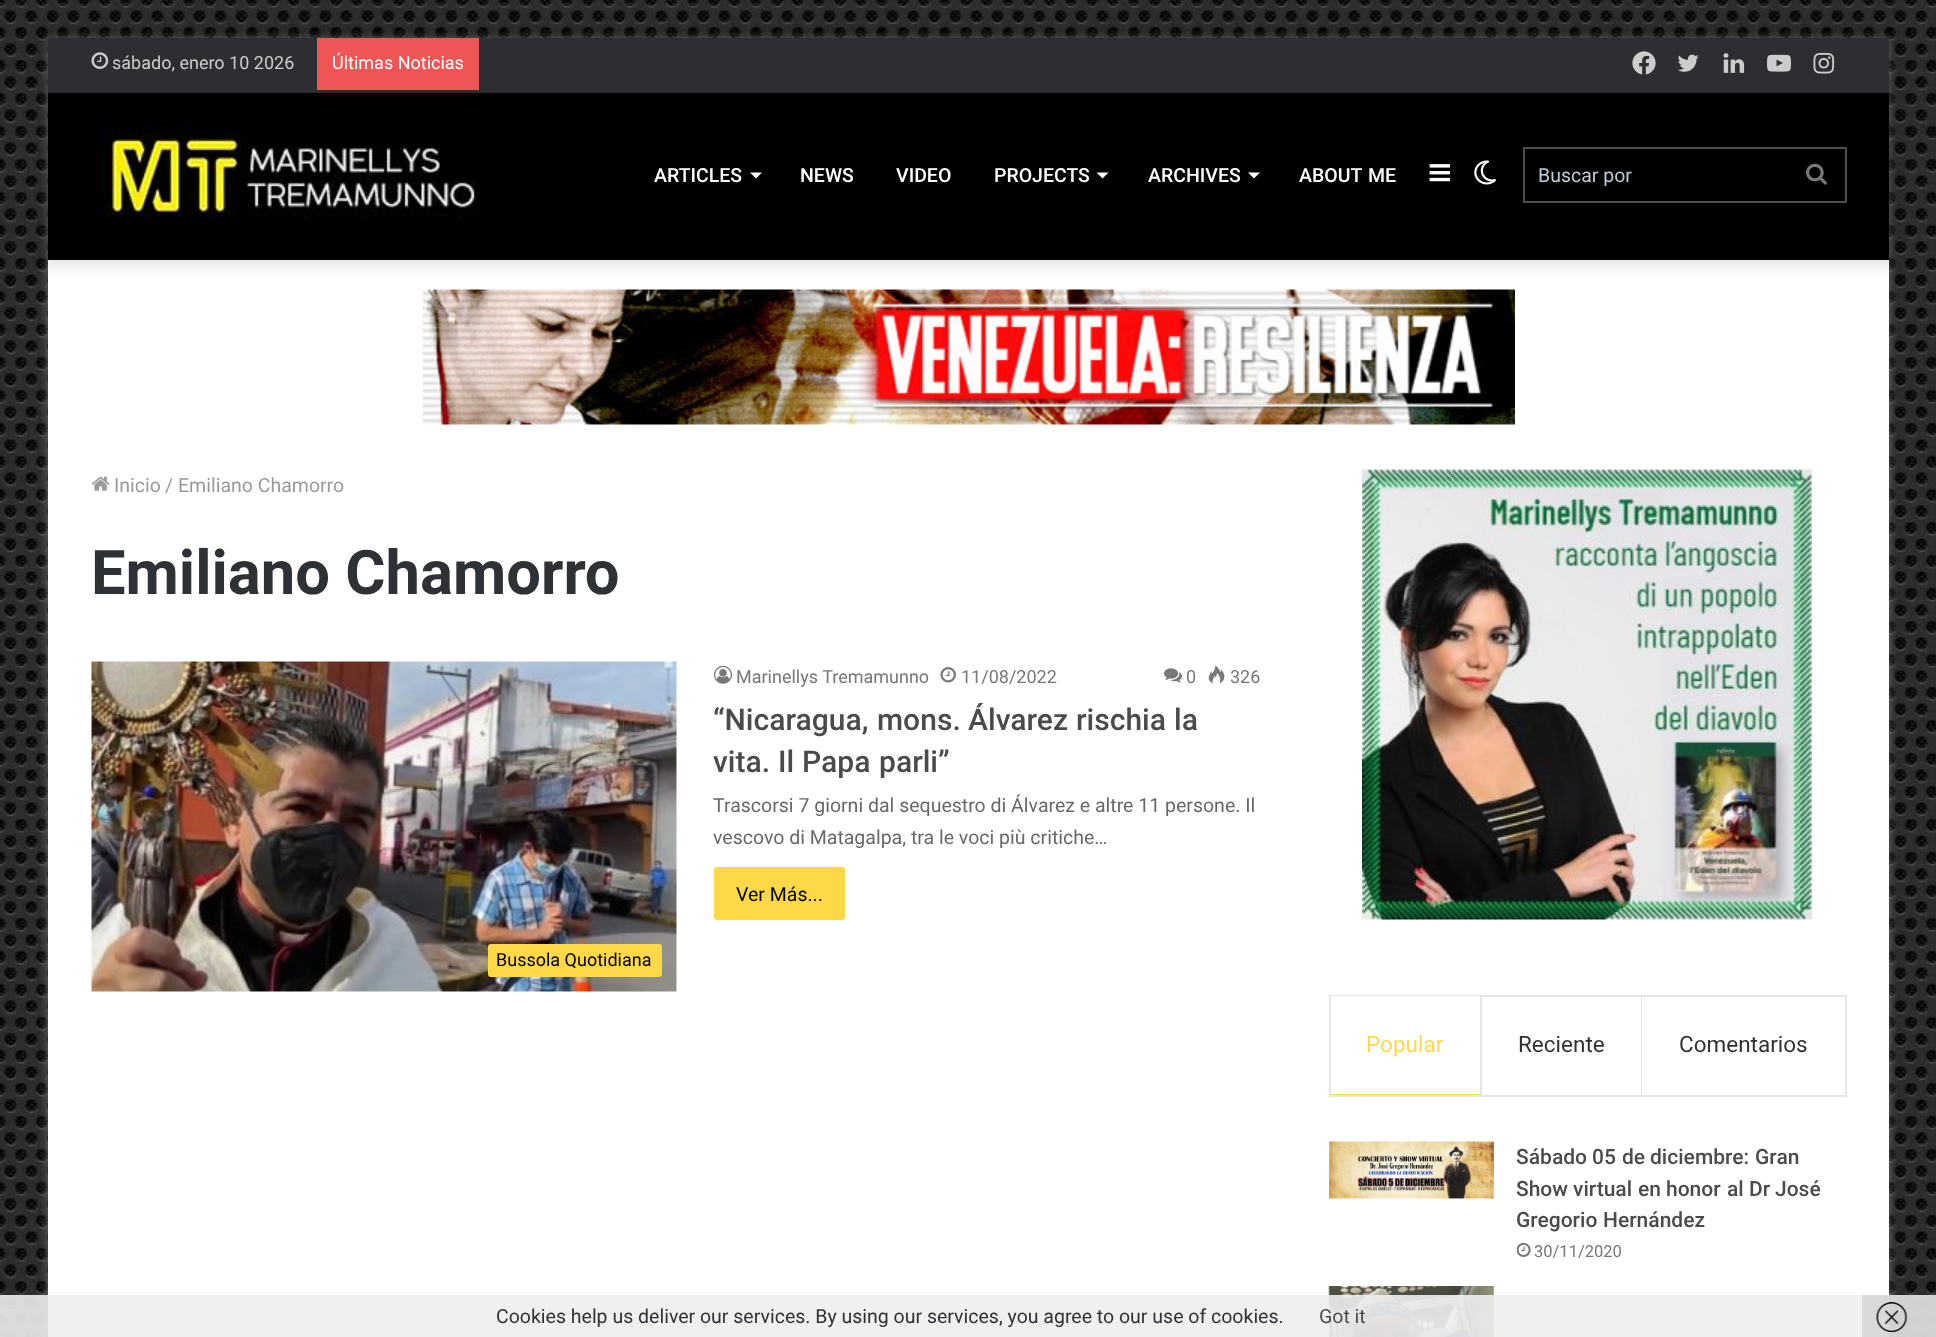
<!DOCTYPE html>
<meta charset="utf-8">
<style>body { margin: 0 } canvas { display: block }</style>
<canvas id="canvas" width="1936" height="1337"></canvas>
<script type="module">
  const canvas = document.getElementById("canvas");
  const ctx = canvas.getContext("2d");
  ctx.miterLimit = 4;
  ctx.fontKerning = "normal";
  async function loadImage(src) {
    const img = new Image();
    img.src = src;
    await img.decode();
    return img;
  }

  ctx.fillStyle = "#ffffff";
  ctx.fillRect(0, 0, 1936, 1337);
  ctx.drawImage(await loadImage("img1.png"), 0, 0, 1936, 1337);
  ctx.fillStyle = "rgba(171, 171, 171, 0.5)";
  ctx.filter = "blur(5px)";
  ctx.beginPath();
  ctx.rect(48, 39, 1841, 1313);
  ctx.fill();
  ctx.filter = "none";
  ctx.fillStyle = "#ffffff";
  ctx.fillRect(48, 260, 1841, 1077);
  ctx.drawImage(await loadImage("img12.png"), 423, 289, 1092, 136);
  ctx.fillStyle = "rgba(0, 0, 0, 0.1)";
  ctx.filter = "blur(7.5px)";
  ctx.beginPath();
  ctx.rect(41, 30, 1855, 237);
  ctx.fill();
  ctx.filter = "none";
  ctx.fillStyle = "#2c2e32";
  ctx.fillRect(48, 38, 1841, 55);
  ctx.fillStyle = "rgba(0, 0, 0, 0.1)";
  ctx.fillRect(48, 92, 1841, 1);
  ctx.drawImage(await loadImage("img2.png"), 91, 52, 18, 17);
  ctx.font = "18px Roboto";
  ctx.fillStyle = "#cccccc";
  ctx.fillText("sábado, enero 10 2026", 112, 69);
  ctx.fillStyle = "#f05555";
  ctx.fillRect(317, 38, 162, 52);
  ctx.fillStyle = "#ffffff";
  ctx.fillText("Últimas Noticias", 332, 69);
  ctx.drawImage(await loadImage("img3.png"), 1632, 51, 24, 24);
  ctx.drawImage(await loadImage("img4.png"), 1677, 54, 22, 18);
  ctx.drawImage(await loadImage("img5.png"), 1723, 53, 22, 20);
  ctx.drawImage(await loadImage("img6.png"), 1767, 54, 24, 18);
  ctx.drawImage(await loadImage("img7.png"), 1813, 52, 22, 22);
  ctx.fillStyle = "#000000";
  ctx.fillRect(48, 93, 1841, 167);
  ctx.drawImage(await loadImage("img8.png"), 94, 121, 382, 97);
  ctx.font = "500 19.5px Roboto";
  ctx.fillStyle = "#ffffff";
  ctx.fillText("ARTICLES", 654, 182);
  ctx.beginPath();
  ctx.moveTo(750, 172.5);
  ctx.lineTo(762, 172.5);
  ctx.lineTo(756, 178.5);
  ctx.closePath();
  ctx.fill();
  ctx.fillText("NEWS", 800, 182);
  ctx.fillText("VIDEO", 896, 182);
  ctx.fillText("PROJECTS", 994, 182);
  ctx.beginPath();
  ctx.moveTo(1096.5, 172.5);
  ctx.lineTo(1108.5, 172.5);
  ctx.lineTo(1102.5, 178.5);
  ctx.closePath();
  ctx.fill();
  ctx.fillText("ARCHIVES", 1148, 182);
  ctx.beginPath();
  ctx.moveTo(1248, 172.5);
  ctx.lineTo(1260, 172.5);
  ctx.lineTo(1254, 178.5);
  ctx.closePath();
  ctx.fill();
  ctx.fillText("ABOUT", 1299, 182);
  ctx.fillText("ME", 1368, 182);
  ctx.drawImage(await loadImage("img9.png"), 1429, 164, 22, 18);
  ctx.drawImage(await loadImage("img10.png"), 1474, 160, 22, 25);
  ctx.strokeStyle = "#4d4d4d";
  ctx.lineWidth = 2;
  ctx.strokeRect(1524, 148, 322, 54);
  ctx.font = "19.5px Roboto";
  ctx.fillStyle = "#bfcad8";
  ctx.fillText("Buscar por", 1538, 182);
  ctx.drawImage(await loadImage("img11.png"), 1806, 163, 21, 22);
  ctx.drawImage(await loadImage("img13.png"), 91, 476, 19, 15);
  ctx.fillStyle = "#9a9a9a";
  ctx.fillText("Inicio", 114, 492);
  ctx.fillText("/", 165, 492);
  ctx.fillText("Emiliano Chamorro", 178, 492);
  ctx.font = "bold 61.5px Roboto";
  ctx.fillStyle = "#2e3136";
  ctx.fillText("Emiliano Chamorro", 91, 594);
  ctx.drawImage(await loadImage("img14.png"), 714, 665, 18, 19);
  ctx.font = "18px Roboto";
  ctx.fillStyle = "#777777";
  ctx.fillText("Marinellys Tremamunno", 736, 683);
  ctx.drawImage(await loadImage("img15.png"), 940, 667, 16, 16);
  ctx.fillText("11/08/2022", 961, 683);
  ctx.drawImage(await loadImage("img16.png"), 1164, 668, 18, 15);
  ctx.fillText("0", 1186, 683);
  ctx.drawImage(await loadImage("img17.png"), 1208, 665, 17, 19);
  ctx.fillText("326", 1230, 683);
  ctx.font = "500 30px Roboto";
  ctx.fillStyle = "#4b4b4b";
  ctx.fillText("“Nicaragua,", 713, 730);
  ctx.fillText("mons.", 877, 730);
  ctx.fillText("Álvarez", 968, 730);
  ctx.fillText("rischia", 1076, 730);
  ctx.fillText("la", 1174, 730);
  ctx.fillText("vita.", 713, 772);
  ctx.fillText("Il", 778, 772);
  ctx.fillText("Papa", 802, 772);
  ctx.fillText("parli”", 879, 772);
  ctx.font = "19.5px Roboto";
  ctx.fillStyle = "#686868";
  ctx.fillText("Trascorsi 7 giorni dal sequestro di Álvarez e altre 11 persone. Il", 713, 812);
  ctx.fillText("vescovo di Matagalpa, tra le voci più critiche…", 713, 844);
  ctx.fillStyle = "#fdd949";
  ctx.beginPath();
  ctx.roundRect(714, 867, 131, 53, 3);
  ctx.fill();
  ctx.fillStyle = "#030303";
  ctx.fillText("Ver Más...", 736, 901);
  ctx.drawImage(await loadImage("img18.png"), 91, 661, 586, 331);
  ctx.fillStyle = "#fdd949";
  ctx.beginPath();
  ctx.roundRect(488, 944, 174, 33, 3);
  ctx.fill();
  ctx.font = "18px Roboto";
  ctx.fillStyle = "#030303";
  ctx.fillText("Bussola Quotidiana", 496, 966);
  ctx.drawImage(await loadImage("img19.png"), 1362, 469, 450, 451);
  ctx.strokeStyle = "#e6e6e6";
  ctx.strokeRect(1330, 996, 516, 100);
  ctx.fillStyle = "#ffffff";
  ctx.fillRect(1331, 996, 151, 1);
  ctx.fillStyle = "#e6e6e6";
  ctx.beginPath();
  ctx.moveTo(1482, 996);
  ctx.lineTo(1482, 1095);
  ctx.lineTo(1480, 1094);
  ctx.lineTo(1480, 996);
  ctx.closePath();
  ctx.fill();
  ctx.fillStyle = "#fdd949";
  ctx.beginPath();
  ctx.moveTo(1482, 1095);
  ctx.lineTo(1330, 1095);
  ctx.lineTo(1330, 1094);
  ctx.lineTo(1480, 1094);
  ctx.closePath();
  ctx.fill();
  ctx.font = "22.5px Roboto";
  ctx.fillText("Popular", 1366, 1052);
  ctx.fillStyle = "rgba(3, 3, 3, 0.1)";
  ctx.beginPath();
  ctx.moveTo(1642, 996);
  ctx.lineTo(1642, 1095);
  ctx.lineTo(1641, 1094);
  ctx.lineTo(1641, 996);
  ctx.closePath();
  ctx.fill();
  ctx.fillStyle = "#2e3136";
  ctx.fillText("Reciente", 1518, 1052);
  ctx.fillText("Comentarios", 1679, 1052);
  ctx.drawImage(await loadImage("img20.png"), 1329, 1141, 165, 58);
  ctx.font = "500 21px Roboto";
  ctx.fillStyle = "#4b4b4b";
  ctx.fillText("Sábado", 1516, 1164);
  ctx.fillText("05", 1592, 1164);
  ctx.fillText("de", 1622, 1164);
  ctx.fillText("diciembre:", 1650, 1164);
  ctx.fillText("Gran", 1755, 1164);
  ctx.fillText("Show", 1516, 1196);
  ctx.fillText("virtual", 1573, 1196);
  ctx.fillText("en", 1638, 1196);
  ctx.fillText("honor", 1666, 1196);
  ctx.fillText("al", 1727, 1196);
  ctx.fillText("Dr", 1749, 1196);
  ctx.fillText("José", 1775, 1196);
  ctx.fillText("Gregorio", 1516, 1227);
  ctx.fillText("Hernández", 1603, 1227);
  ctx.drawImage(await loadImage("img21.png"), 1517, 1242, 14, 15);
  ctx.font = "16.5px Roboto";
  ctx.fillStyle = "#777777";
  ctx.fillText("30/11/2020", 1534, 1257);
  ctx.drawImage(await loadImage("img22.png"), 1328, 1286, 166, 51);
  ctx.fillStyle = "rgba(238, 238, 238, 0.9)";
  ctx.fillRect(0, 1295, 1936, 42);
  ctx.font = "19.5px Roboto";
  ctx.fillStyle = "#2e3136";
  ctx.fillText("Cookies help us deliver our services. By using our services, you agree to our use of cookies.", 496, 1323);
  ctx.fillStyle = "#4b4b4b";
  ctx.fillText("Got it", 1319, 1323);
  ctx.fillStyle = "rgba(204, 204, 204, 0.6)";
  ctx.fillRect(1862, 1295, 74, 42);
  ctx.drawImage(await loadImage("img23.png"), 1876, 1302, 31, 30);
</script>
